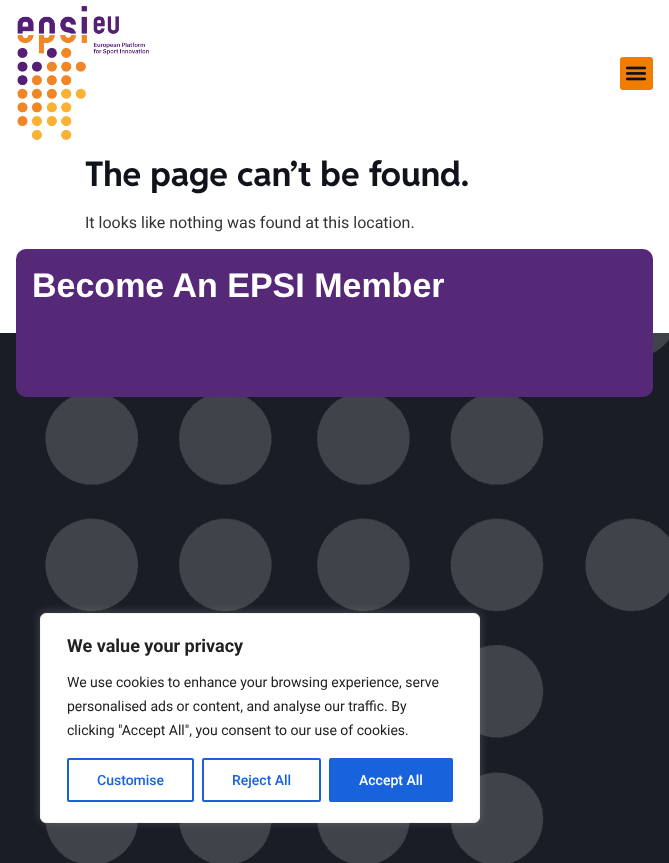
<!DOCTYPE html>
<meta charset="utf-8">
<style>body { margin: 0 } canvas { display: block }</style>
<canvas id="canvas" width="669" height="863"></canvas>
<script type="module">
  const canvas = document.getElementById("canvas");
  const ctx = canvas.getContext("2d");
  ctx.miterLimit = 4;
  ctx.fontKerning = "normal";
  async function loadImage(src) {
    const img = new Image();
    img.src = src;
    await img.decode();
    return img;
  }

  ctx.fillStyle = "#ffffff";
  ctx.fillRect(0, 0, 669, 863);
  ctx.drawImage(await loadImage("img1.png"), 17, 6, 132, 134);
  ctx.fillStyle = "#f07d00";
  ctx.beginPath();
  ctx.roundRect(620, 57, 33, 33, 3);
  ctx.fill();
  ctx.drawImage(await loadImage("img2.png"), 625, 66, 22, 15);
  ctx.font = "bold 34px Reddit Sans";
  ctx.fillStyle = "#10131c";
  ctx.fillText("The page can’t be found.", 85, 186);
  ctx.font = "16px Roboto";
  ctx.fillStyle = "#333333";
  ctx.fillText("It looks like nothing was found at this location.", 85, 228);
  ctx.fillStyle = "#1a1d26";
  ctx.fillRect(0, 333, 669, 530);
  ctx.drawImage(await loadImage("img3.png"), 45, 333, 624, 530);
  ctx.fillStyle = "#562878";
  ctx.beginPath();
  ctx.roundRect(16, 249, 637, 148, 10);
  ctx.fill();
  ctx.font = "bold 34px Liberation Sans";
  ctx.fillStyle = "#ffffff";
  ctx.fillText("Become An EPSI Member", 32, 297);
  ctx.fillStyle = "rgba(172, 171, 171, 0.3)";
  ctx.filter = "blur(5px)";
  ctx.beginPath();
  ctx.roundRect(40, 612, 440, 210, 6);
  ctx.fill();
  ctx.filter = "none";
  ctx.fillStyle = "#ffffff";
  ctx.beginPath();
  ctx.roundRect(40.5, 613.5, 439, 209, 5.5);
  ctx.fill();
  ctx.strokeStyle = "#f4f4f4";
  ctx.stroke();
  ctx.font = "bold 18px Roboto";
  ctx.fillStyle = "#212121";
  ctx.fillText("We value your privacy", 67, 652);
  ctx.font = "14px Roboto";
  ctx.fillText("We use cookies to enhance your browsing experience, serve", 67, 687);
  ctx.fillText("personalised ads or content, and analyse our traffic. By", 67, 711);
  ctx.fillText("clicking \"Accept All\", you consent to our use of cookies.", 67, 735);
  ctx.beginPath();
  ctx.roundRect(68, 759, 125, 42, 1);
  ctx.strokeStyle = "#1863dc";
  ctx.lineWidth = 2;
  ctx.stroke();
  ctx.font = "500 14px Roboto";
  ctx.fillStyle = "#1863dc";
  ctx.fillText("Customise", 97, 785);
  ctx.beginPath();
  ctx.roundRect(203, 759, 117, 42, 1);
  ctx.stroke();
  ctx.fillText("Reject All", 232, 785);
  ctx.beginPath();
  ctx.roundRect(330, 759, 122, 42, 1);
  ctx.fill();
  ctx.stroke();
  ctx.fillStyle = "#ffffff";
  ctx.fillText("Accept All", 359, 785);
</script>
